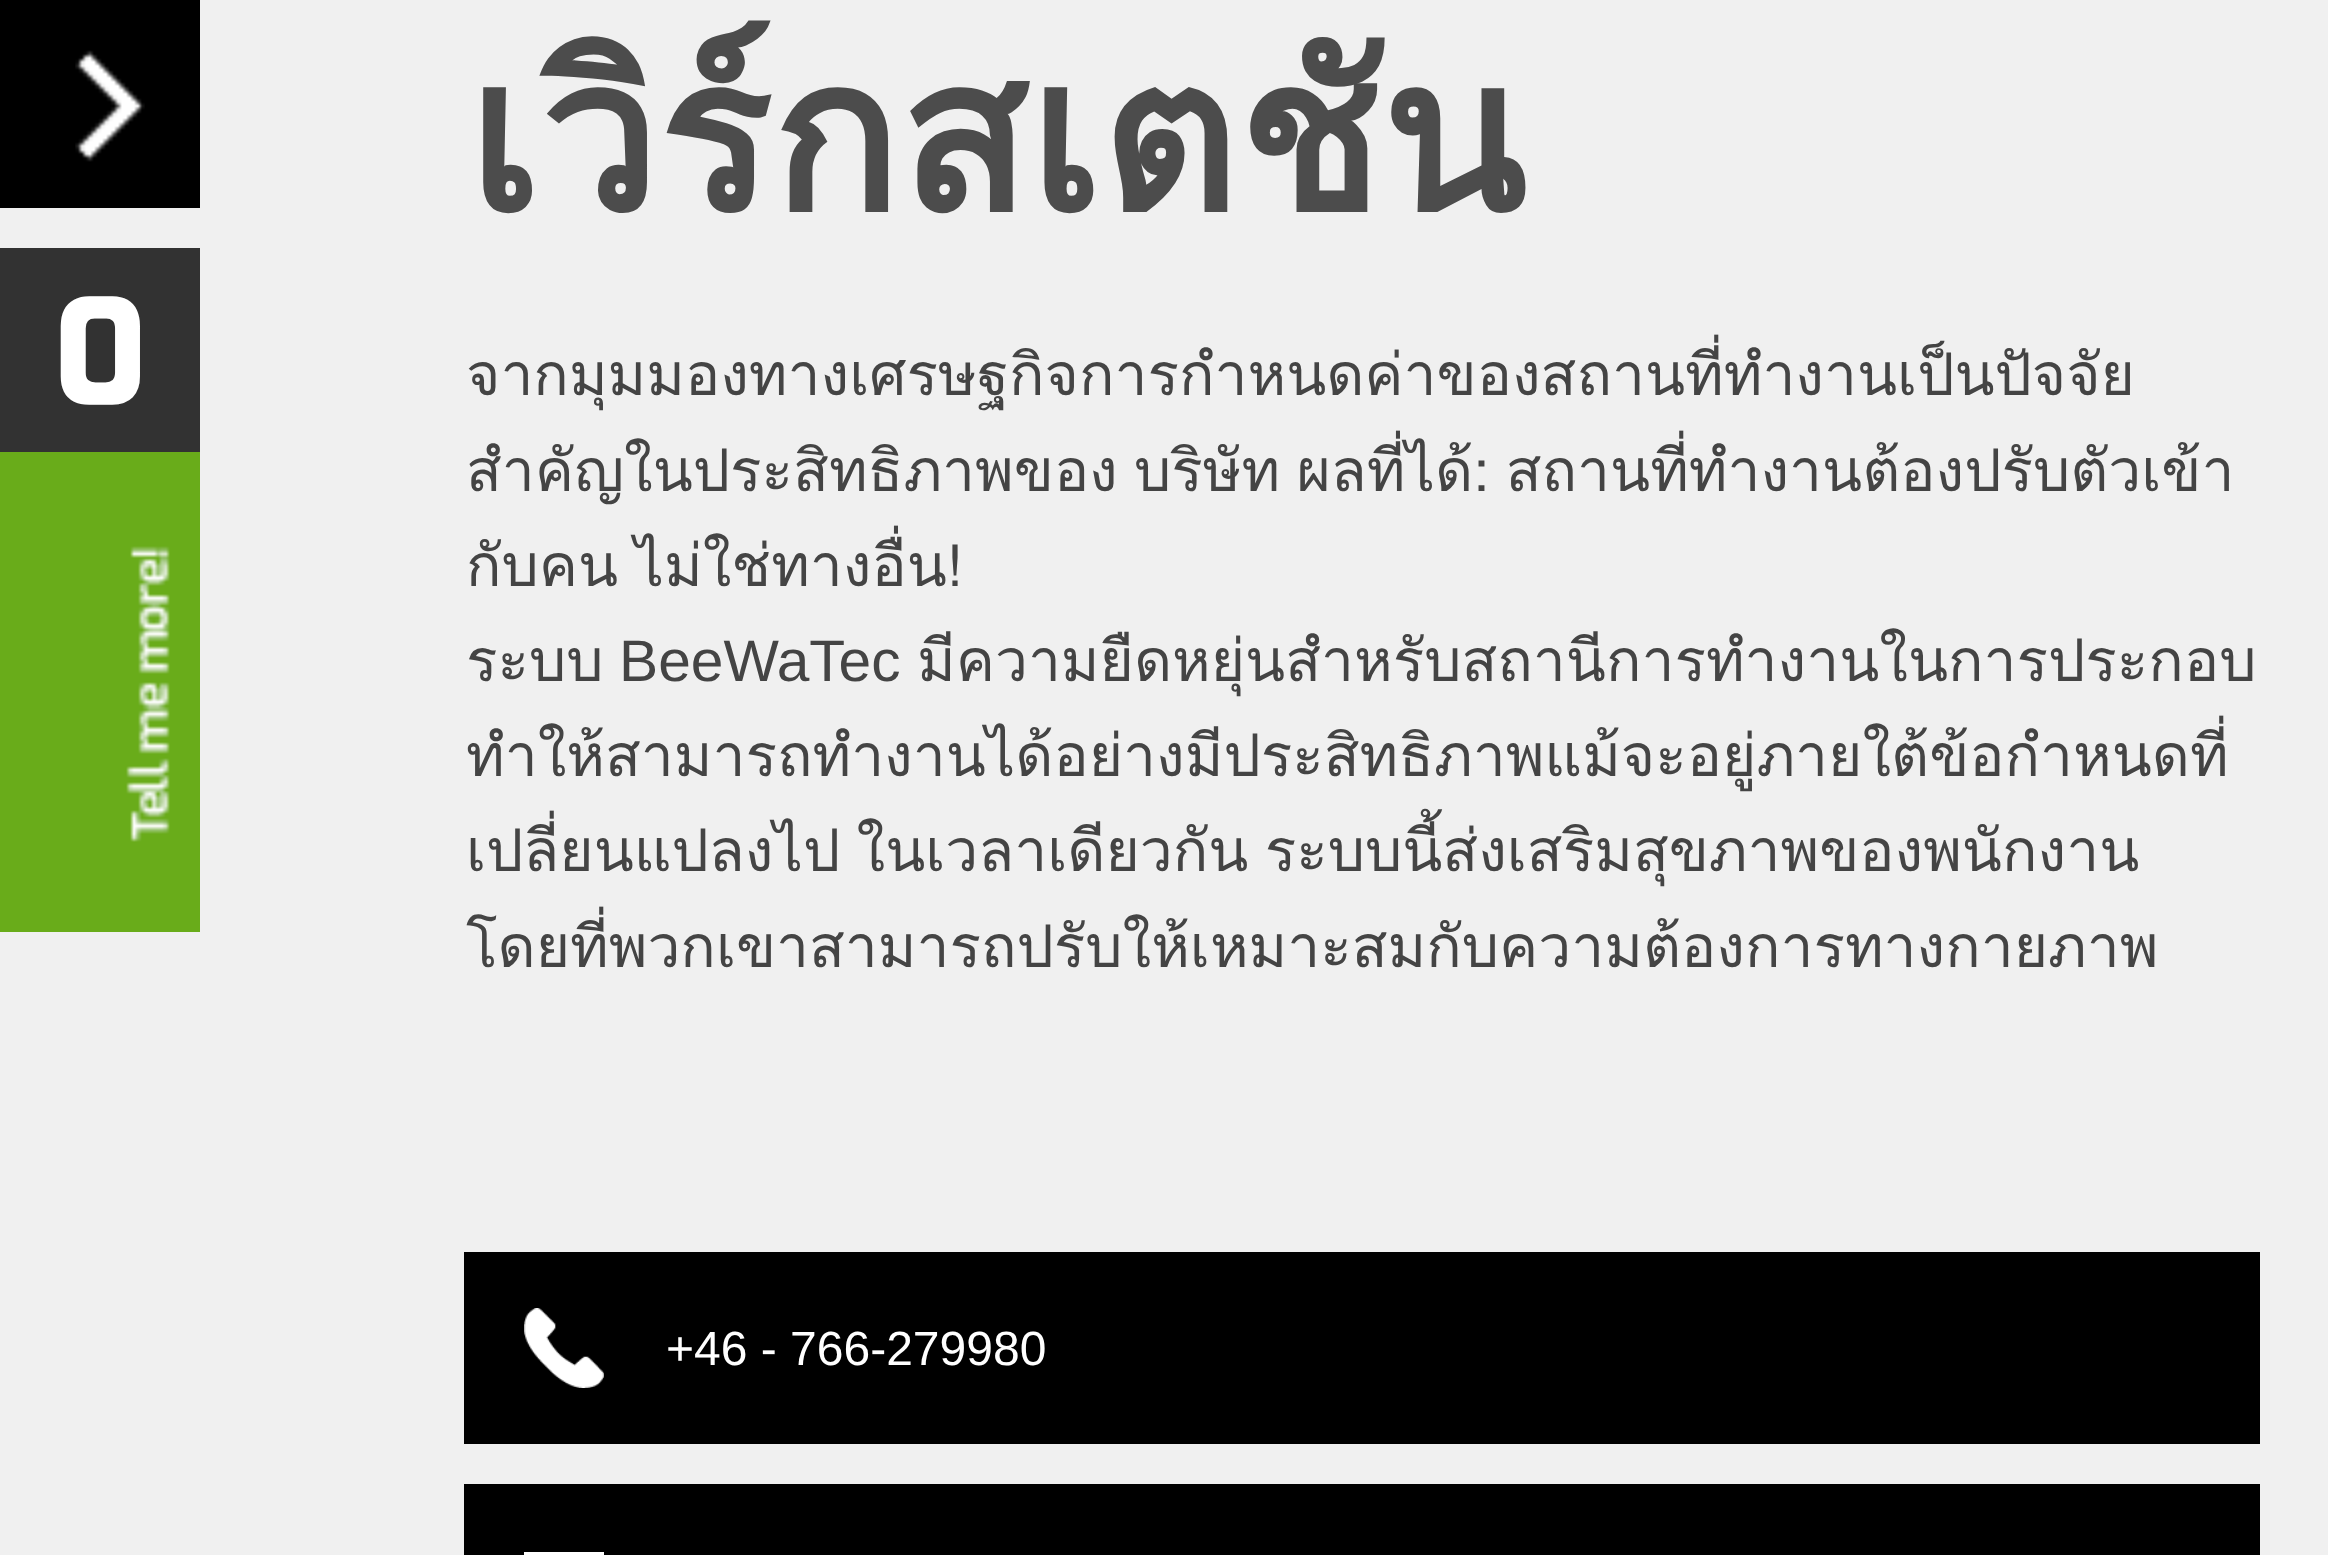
<!DOCTYPE html>
<meta charset="utf-8">
<style>body { margin: 0 } canvas { display: block }</style>
<canvas id="canvas" width="2328" height="1555"></canvas>
<script type="module">
  const canvas = document.getElementById("canvas");
  const ctx = canvas.getContext("2d");
  ctx.miterLimit = 4;
  ctx.fontKerning = "normal";
  async function loadImage(src) {
    const img = new Image();
    img.src = src;
    await img.decode();
    return img;
  }

  ctx.fillStyle = "#f0f0f0";
  ctx.fillRect(0, 0, 2328, 1555);
  ctx.fillStyle = "#000000";
  ctx.fillRect(0, 0, 200, 208);
  ctx.drawImage(await loadImage("img1.png"), 75, 50, 70, 112);
  ctx.fillStyle = "#323232";
  ctx.fillRect(0, 248, 200, 204);
  ctx.font = "800 144px Exo";
  ctx.fillStyle = "#ffffff";
  ctx.fillText("0", 54, 404);
  ctx.drawImage(await loadImage("img2.png"), 0, 452, 200, 480);
  ctx.save();
  ctx.beginPath();
  ctx.rect(464, 0, 1796, 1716);
  ctx.clip();
  ctx.font = "bold 211.25px Loma";
  ctx.fillStyle = "#4c4c4c";
  ctx.fillText("เวิร์กสเตชัน", 466, 212);
  ctx.restore();
  ctx.font = "58.7px Loma";
  ctx.fillStyle = "#444444";
  ctx.fillText("จากมุมมองทางเศรษฐกิจการกำหนดค่าของสถานที่ทำงานเป็นปัจจัย", 466, 395);
  ctx.save();
  ctx.beginPath();
  ctx.rect(464, 0, 1796, 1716);
  ctx.clip();
  ctx.wordSpacing = "-3.5px";
  ctx.fillText("สำคัญในประสิทธิภาพของ บริษัท ผลที่ได้: สถานที่ทำงานต้องปรับตัวเข้า", 466, 491);
  ctx.fillText("กับคน ไม่ใช่ทางอื่น!", 466, 586);
  ctx.restore();
  ctx.fillText("ระบบ", 466, 681);
  ctx.font = "58.7px Liberation Sans";
  ctx.fillText("BeeWaTec", 619, 681);
  ctx.font = "58.7px Loma";
  ctx.fillText("มีความยืดหยุ่นสำหรับสถานีการทำงานในการประกอบ", 917, 681);
  ctx.save();
  ctx.beginPath();
  ctx.rect(464, 0, 1796, 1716);
  ctx.clip();
  ctx.fillText("ทำให้สามารถทำงานได้อย่างมีประสิทธิภาพแม้จะอยู่ภายใต้ข้อกำหนดที่", 466, 776);
  ctx.restore();
  ctx.wordSpacing = "-3.5px";
  ctx.fillText("เปลี่ยนแปลงไป ในเวลาเดียวกัน ระบบนี้ส่งเสริมสุขภาพของพนักงาน", 466, 871);
  ctx.wordSpacing = "0px";
  ctx.fillText("โดยที่พวกเขาสามารถปรับให้เหมาะสมกับความต้องการทางกายภาพ", 466, 967);
  ctx.fillStyle = "#000000";
  ctx.fillRect(464, 1252, 1796, 192);
  ctx.drawImage(await loadImage("img3.png"), 524, 1308, 80, 80);
  ctx.font = "48px Liberation Sans";
  ctx.fillStyle = "#ffffff";
  ctx.fillText("+46 - 766-279980", 666, 1365);
  ctx.fillStyle = "#000000";
  ctx.fillRect(464, 1484, 1796, 71);
  ctx.fillStyle = "#ffffff";
  ctx.fillRect(524, 1552, 80, 3);
</script>
